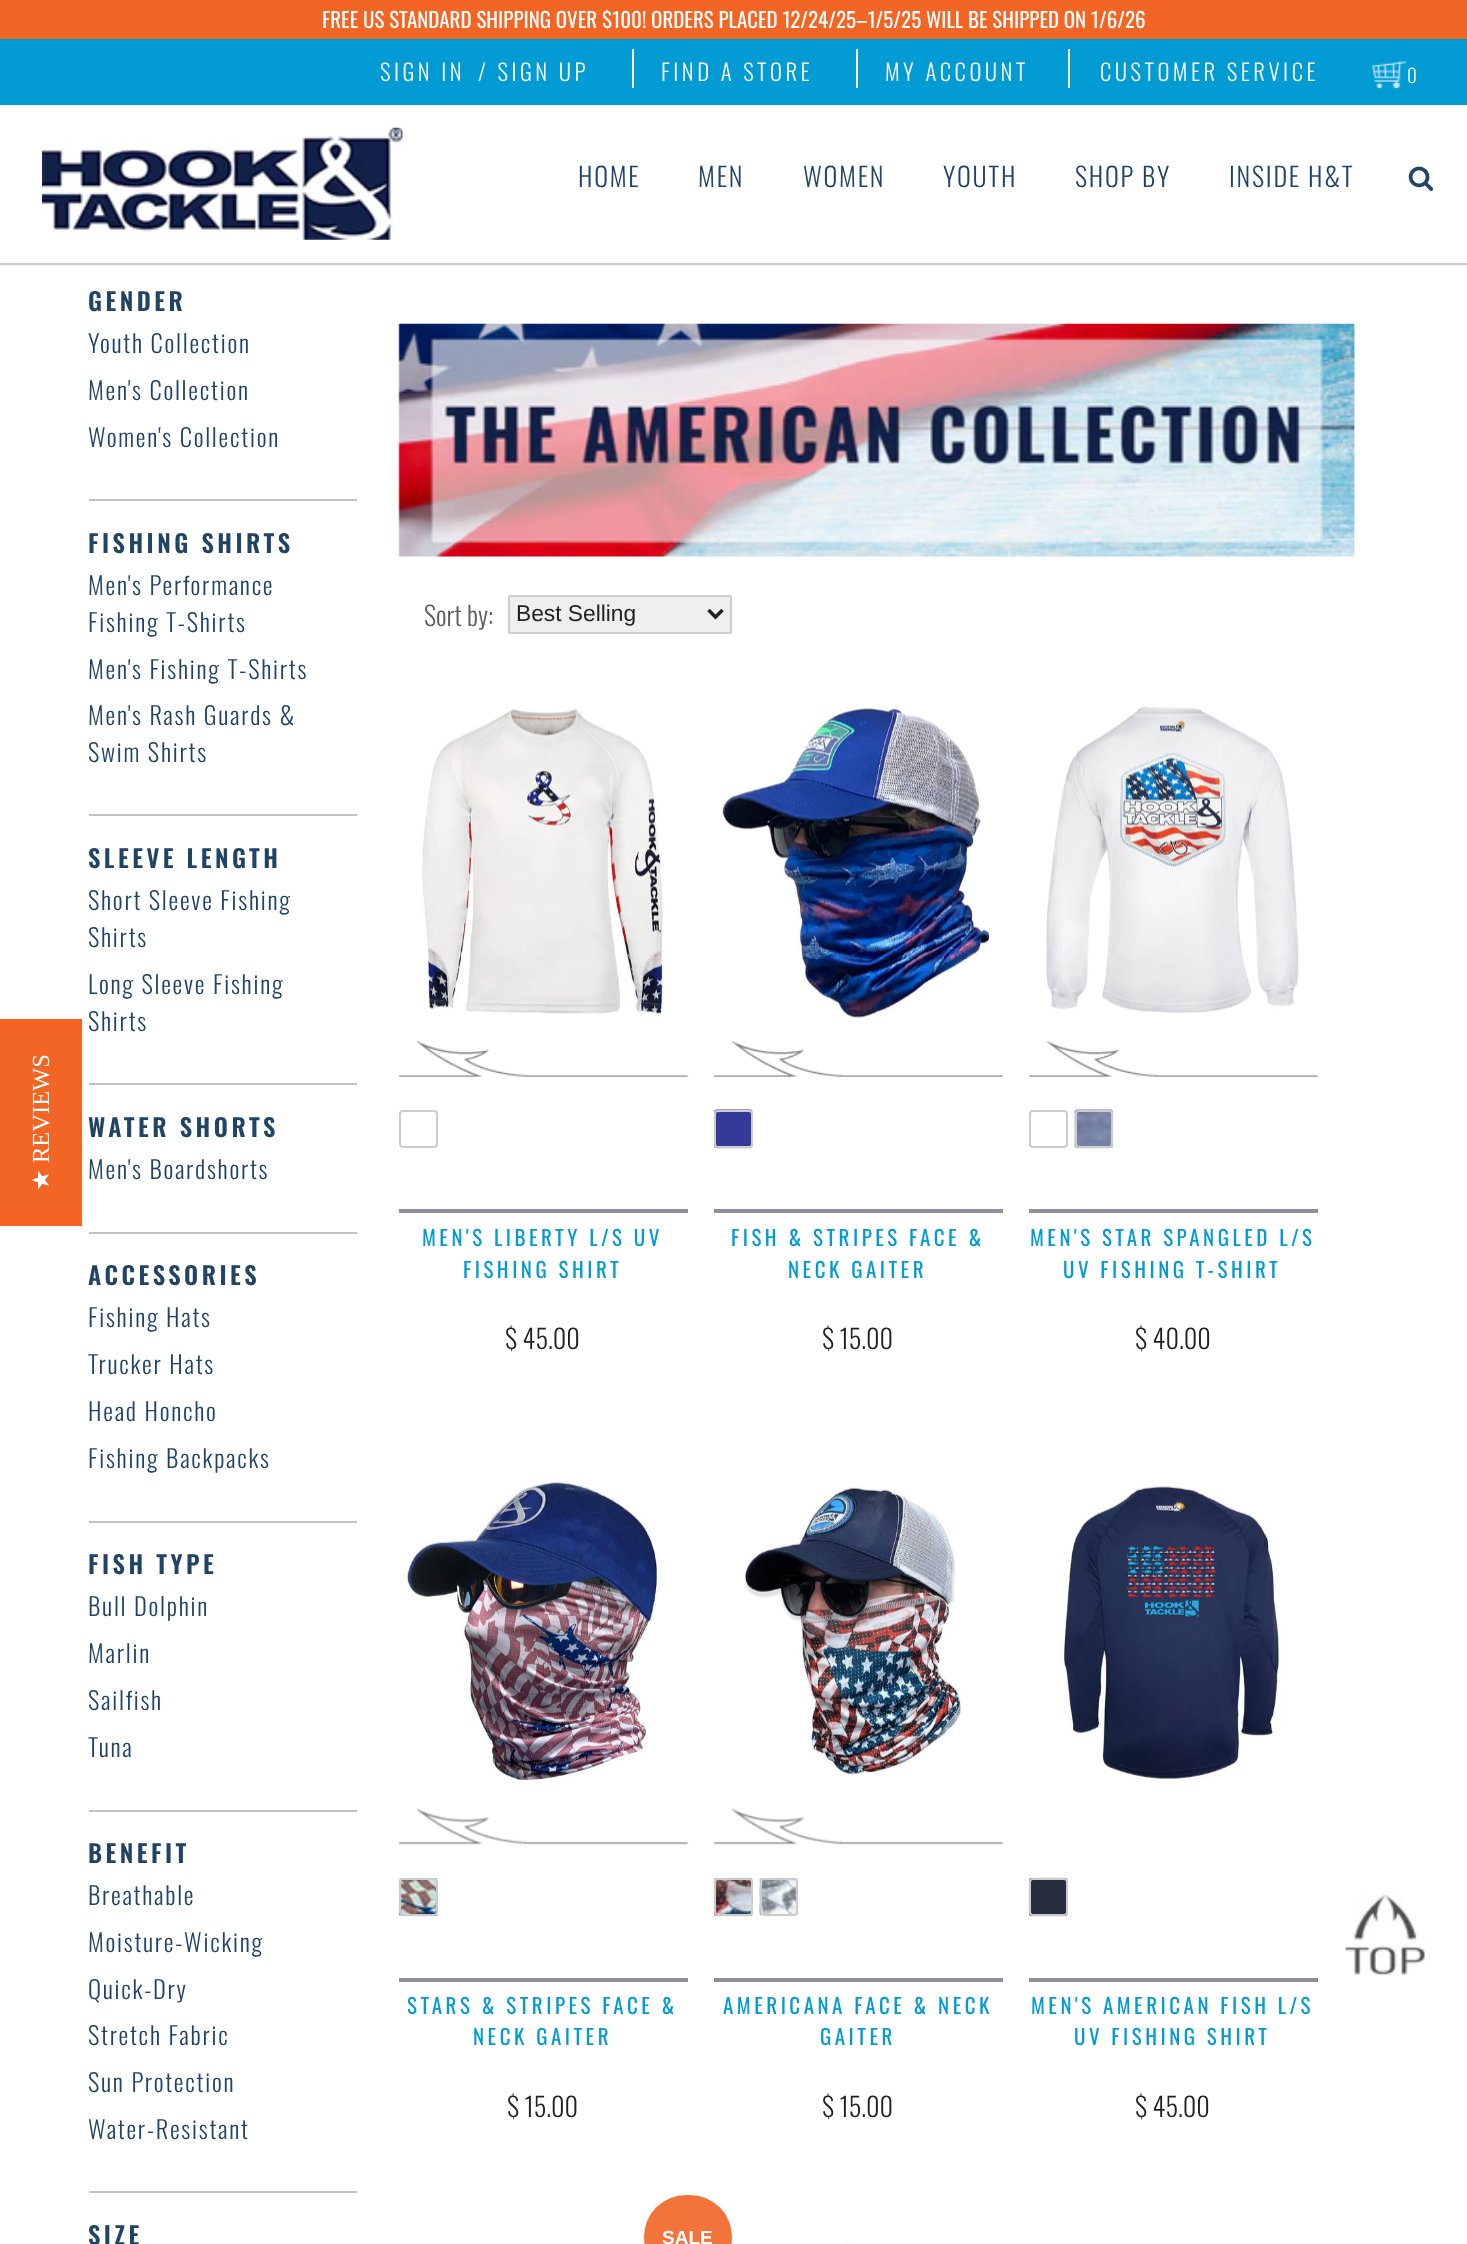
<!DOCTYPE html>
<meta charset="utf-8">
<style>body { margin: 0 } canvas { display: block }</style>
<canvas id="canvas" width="1467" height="2244"></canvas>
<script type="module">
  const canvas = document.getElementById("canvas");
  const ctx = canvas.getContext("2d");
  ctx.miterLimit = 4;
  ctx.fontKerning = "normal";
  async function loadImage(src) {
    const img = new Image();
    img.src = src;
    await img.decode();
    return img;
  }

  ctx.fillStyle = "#ffffff";
  ctx.fillRect(0, 0, 1467, 2244);
  ctx.fillStyle = "rgba(50, 50, 50, 0.5)";
  ctx.filter = "blur(1px)";
  ctx.beginPath();
  ctx.rect(0, 105, 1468, 159);
  ctx.fill();
  ctx.filter = "none";
  ctx.fillStyle = "#029bd4";
  ctx.fillRect(0, 39, 1467, 66);
  ctx.fillStyle = "#f36525";
  ctx.fillRect(0, 0, 1467, 39);
  ctx.font = "21px Oswald";
  ctx.fillStyle = "#ffffff";
  ctx.fillText("FREE US STANDARD SHIPPING OVER $100! ORDERS PLACED 12/24/25–1/5/25 WILL BE SHIPPED ON 1/6/26", 322, 28);
  ctx.letterSpacing = "3.5px";
  ctx.font = "300 22.75px Oswald";
  ctx.fillText("SIGN IN", 380, 81);
  ctx.fillText("/ SIGN UP", 478, 81);
  ctx.fillRect(632, 49, 2, 39);
  ctx.fillText("FIND A STORE", 661, 81);
  ctx.fillRect(856, 49, 2, 39);
  ctx.fillText("MY ACCOUNT", 885, 81);
  ctx.fillRect(1068, 49, 2, 39);
  ctx.fillText("CUSTOMER SERVICE", 1100, 81);
  ctx.drawImage(await loadImage("img1.png"), 1372, 61, 35, 28);
  ctx.font = "300 19px Oswald";
  ctx.fillText("0", 1407, 83);
  ctx.fillRect(0, 105, 1467, 158);
  ctx.fillStyle = "#cccccc";
  ctx.fillRect(0, 263, 1467, 2);
  ctx.drawImage(await loadImage("img2.png"), 42, 127, 361, 113);
  ctx.letterSpacing = "1.75px";
  ctx.font = "300 26.25px Oswald";
  ctx.fillStyle = "#204466";
  ctx.fillText("HOME", 578, 187);
  ctx.fillText("MEN", 698, 187);
  ctx.fillText("WOMEN", 803, 187);
  ctx.fillText("YOUTH", 943, 187);
  ctx.fillText("SHOP BY", 1075, 187);
  ctx.fillText("INSIDE H&T", 1229, 187);
  ctx.drawImage(await loadImage("img3.png"), 1408, 166, 26, 25);
  ctx.fillStyle = "#f26525";
  ctx.fillRect(0, 1019, 82, 207);
  ctx.letterSpacing = "0px";
  ctx.font = "24.5px Liberation Serif";
  ctx.fillStyle = "#ffffff";
  ctx.save();
  ctx.translate(49, 1163);
  ctx.rotate(-90 * Math.PI / 180);
  ctx.fillText("REVIEWS", 0, 0);
  ctx.restore();
  ctx.font = "24.5px DejaVu Sans";
  ctx.save();
  ctx.translate(49, 1191);
  ctx.rotate(-90 * Math.PI / 180);
  ctx.fillText("★", 0, 0);
  ctx.restore();
  ctx.letterSpacing = "3.5px";
  ctx.font = "600 24.5px Oswald";
  ctx.fillStyle = "#204466";
  ctx.fillText("GENDER", 88, 311);
  ctx.letterSpacing = "1.75px";
  ctx.font = "300 24.5px Oswald";
  ctx.fillText("Youth Collection", 88, 353);
  ctx.fillText("Men's Collection", 88, 400);
  ctx.fillText("Women's Collection", 88, 447);
  ctx.fillStyle = "#c2c2c2";
  ctx.fillRect(89, 499, 268, 2);
  ctx.letterSpacing = "3.5px";
  ctx.font = "600 24.5px Oswald";
  ctx.fillStyle = "#204466";
  ctx.fillText("FISHING SHIRTS", 88, 553);
  ctx.letterSpacing = "1.75px";
  ctx.font = "300 24.5px Oswald";
  ctx.fillText("Men's Performance", 88, 595);
  ctx.fillText("Fishing T-Shirts", 88, 632);
  ctx.fillText("Men's Fishing T-Shirts", 88, 679);
  ctx.fillText("Men's Rash Guards &", 88, 725);
  ctx.fillText("Swim Shirts", 88, 762);
  ctx.fillStyle = "#c2c2c2";
  ctx.fillRect(89, 814, 268, 2);
  ctx.letterSpacing = "3.5px";
  ctx.font = "600 24.5px Oswald";
  ctx.fillStyle = "#204466";
  ctx.fillText("SLEEVE LENGTH", 88, 868);
  ctx.letterSpacing = "1.75px";
  ctx.font = "300 24.5px Oswald";
  ctx.fillText("Short Sleeve Fishing", 88, 910);
  ctx.fillText("Shirts", 88, 947);
  ctx.fillText("Long Sleeve Fishing", 88, 994);
  ctx.fillText("Shirts", 88, 1031);
  ctx.fillStyle = "#c2c2c2";
  ctx.fillRect(89, 1083, 268, 2);
  ctx.letterSpacing = "3.5px";
  ctx.font = "600 24.5px Oswald";
  ctx.fillStyle = "#204466";
  ctx.fillText("WATER SHORTS", 88, 1137);
  ctx.letterSpacing = "1.75px";
  ctx.font = "300 24.5px Oswald";
  ctx.fillText("Men's Boardshorts", 88, 1179);
  ctx.fillStyle = "#c2c2c2";
  ctx.fillRect(89, 1232, 268, 2);
  ctx.letterSpacing = "3.5px";
  ctx.font = "600 24.5px Oswald";
  ctx.fillStyle = "#204466";
  ctx.fillText("ACCESSORIES", 88, 1285);
  ctx.letterSpacing = "1.75px";
  ctx.font = "300 24.5px Oswald";
  ctx.fillText("Fishing Hats", 88, 1327);
  ctx.fillText("Trucker Hats", 88, 1374);
  ctx.fillText("Head Honcho", 88, 1421);
  ctx.fillText("Fishing Backpacks", 88, 1468);
  ctx.fillStyle = "#c2c2c2";
  ctx.fillRect(89, 1521, 268, 2);
  ctx.letterSpacing = "3.5px";
  ctx.font = "600 24.5px Oswald";
  ctx.fillStyle = "#204466";
  ctx.fillText("FISH TYPE", 88, 1574);
  ctx.letterSpacing = "1.75px";
  ctx.font = "300 24.5px Oswald";
  ctx.fillText("Bull Dolphin", 88, 1616);
  ctx.fillText("Marlin", 88, 1663);
  ctx.fillText("Sailfish", 88, 1710);
  ctx.fillText("Tuna", 88, 1757);
  ctx.fillStyle = "#c2c2c2";
  ctx.fillRect(89, 1810, 268, 2);
  ctx.letterSpacing = "3.5px";
  ctx.font = "600 24.5px Oswald";
  ctx.fillStyle = "#204466";
  ctx.fillText("BENEFIT", 88, 1863);
  ctx.letterSpacing = "1.75px";
  ctx.font = "300 24.5px Oswald";
  ctx.fillText("Breathable", 88, 1905);
  ctx.fillText("Moisture-Wicking", 88, 1952);
  ctx.fillText("Quick-Dry", 88, 1999);
  ctx.fillText("Stretch Fabric", 88, 2045);
  ctx.fillText("Sun Protection", 88, 2092);
  ctx.fillText("Water-Resistant", 88, 2139);
  ctx.fillStyle = "#c2c2c2";
  ctx.fillRect(89, 2191, 268, 2);
  ctx.letterSpacing = "3.5px";
  ctx.font = "600 24.5px Oswald";
  ctx.fillStyle = "#204466";
  ctx.fillText("SIZE", 88, 2245);
  ctx.drawImage(await loadImage("img4.png"), 398, 323, 957, 234);
  ctx.letterSpacing = "0px";
  ctx.font = "300 26.25px Oswald";
  ctx.fillStyle = "#5c5c5c";
  ctx.fillText("Sort by:", 424, 626);
  ctx.fillStyle = "#efefef";
  ctx.beginPath();
  ctx.roundRect(509, 596, 222, 37, 1);
  ctx.fill();
  ctx.strokeStyle = "#cccccc";
  ctx.lineWidth = 2;
  ctx.stroke();
  ctx.beginPath();
  ctx.moveTo(708.5, 610);
  ctx.lineTo(715.5, 617);
  ctx.lineTo(722.5, 610);
  ctx.strokeStyle = "#222222";
  ctx.lineWidth = 3.5;
  ctx.stroke();
  ctx.font = "22.75px Liberation Sans";
  ctx.fillStyle = "#222222";
  ctx.fillText("Best Selling", 516, 621);
  ctx.drawImage(await loadImage("img5.png"), 422, 708, 245, 307);
  ctx.drawImage(await loadImage("img6.png"), 398, 1041, 291, 36);
  ctx.beginPath();
  ctx.roundRect(400, 1111, 37, 36, 3);
  ctx.strokeStyle = "#cccccc";
  ctx.lineWidth = 2;
  ctx.stroke();
  ctx.fillStyle = "#90909c";
  ctx.fillRect(399, 1209, 289, 4);
  ctx.letterSpacing = "3.5px";
  ctx.font = "21px Oswald";
  ctx.fillStyle = "#029bd4";
  ctx.fillText("MEN'S LIBERTY L/S UV", 422, 1246);
  ctx.fillText("FISHING SHIRT", 463, 1278);
  ctx.letterSpacing = "0px";
  ctx.font = "300 26.25px Oswald";
  ctx.fillStyle = "#222222";
  ctx.fillText("$ 45.00", 505, 1349);
  ctx.drawImage(await loadImage("img7.png"), 721, 707, 269, 311);
  ctx.drawImage(await loadImage("img6.png"), 713, 1041, 291, 36);
  ctx.drawImage(await loadImage("img8.png"), 713, 1109, 40, 40);
  ctx.beginPath();
  ctx.roundRect(715, 1111, 37, 36, 3);
  ctx.stroke();
  ctx.fillStyle = "#90909c";
  ctx.fillRect(714, 1209, 289, 4);
  ctx.letterSpacing = "3.5px";
  ctx.font = "21px Oswald";
  ctx.fillStyle = "#029bd4";
  ctx.fillText("FISH & STRIPES FACE &", 731, 1246);
  ctx.fillText("NECK GAITER", 788, 1278);
  ctx.letterSpacing = "0px";
  ctx.font = "300 26.25px Oswald";
  ctx.fillStyle = "#222222";
  ctx.fillText("$ 15.00", 822, 1349);
  ctx.drawImage(await loadImage("img9.png"), 1046, 706, 253, 307);
  ctx.drawImage(await loadImage("img10.png"), 1028, 1041, 290, 36);
  ctx.beginPath();
  ctx.roundRect(1030, 1111, 37, 36, 3);
  ctx.stroke();
  ctx.drawImage(await loadImage("img11.png"), 1074, 1109, 40, 40);
  ctx.beginPath();
  ctx.roundRect(1076, 1111, 36, 36, 3);
  ctx.stroke();
  ctx.fillStyle = "#90909c";
  ctx.fillRect(1029, 1209, 289, 4);
  ctx.letterSpacing = "3.5px";
  ctx.font = "21px Oswald";
  ctx.fillStyle = "#029bd4";
  ctx.fillText("MEN'S STAR SPANGLED L/S", 1030, 1246);
  ctx.fillText("UV FISHING T-SHIRT", 1063, 1278);
  ctx.letterSpacing = "0px";
  ctx.font = "300 26.25px Oswald";
  ctx.fillStyle = "#222222";
  ctx.fillText("$ 40.00", 1135, 1349);
  ctx.drawImage(await loadImage("img12.png"), 405, 1481, 256, 302);
  ctx.drawImage(await loadImage("img13.png"), 398, 1808, 291, 37);
  ctx.drawImage(await loadImage("img14.png"), 398, 1877, 40, 40);
  ctx.beginPath();
  ctx.roundRect(400, 1879, 37, 36, 3);
  ctx.stroke();
  ctx.fillStyle = "#90909c";
  ctx.fillRect(399, 1978, 289, 4);
  ctx.letterSpacing = "3.5px";
  ctx.font = "21px Oswald";
  ctx.fillStyle = "#029bd4";
  ctx.fillText("STARS & STRIPES FACE &", 407, 2014);
  ctx.fillText("NECK GAITER", 473, 2045);
  ctx.letterSpacing = "0px";
  ctx.font = "300 26.25px Oswald";
  ctx.fillStyle = "#222222";
  ctx.fillText("$ 15.00", 507, 2117);
  ctx.drawImage(await loadImage("img15.png"), 744, 1487, 219, 289);
  ctx.drawImage(await loadImage("img16.png"), 713, 1808, 290, 37);
  ctx.drawImage(await loadImage("img17.png"), 713, 1877, 40, 40);
  ctx.beginPath();
  ctx.roundRect(715, 1879, 37, 36, 3);
  ctx.stroke();
  ctx.drawImage(await loadImage("img18.png"), 759, 1877, 40, 40);
  ctx.beginPath();
  ctx.roundRect(761, 1879, 36, 36, 3);
  ctx.stroke();
  ctx.fillStyle = "#90909c";
  ctx.fillRect(714, 1978, 289, 4);
  ctx.letterSpacing = "3.5px";
  ctx.font = "21px Oswald";
  ctx.fillStyle = "#029bd4";
  ctx.fillText("AMERICANA FACE & NECK", 723, 2014);
  ctx.fillText("GAITER", 820, 2045);
  ctx.letterSpacing = "0px";
  ctx.font = "300 26.25px Oswald";
  ctx.fillStyle = "#222222";
  ctx.fillText("$ 15.00", 822, 2117);
  ctx.drawImage(await loadImage("img19.png"), 1063, 1485, 218, 296);
  ctx.drawImage(await loadImage("img20.png"), 1028, 1877, 40, 40);
  ctx.beginPath();
  ctx.roundRect(1030, 1879, 37, 36, 3);
  ctx.stroke();
  ctx.fillStyle = "#90909c";
  ctx.fillRect(1029, 1978, 289, 4);
  ctx.letterSpacing = "3.5px";
  ctx.font = "21px Oswald";
  ctx.fillStyle = "#029bd4";
  ctx.fillText("MEN'S AMERICAN FISH L/S", 1031, 2014);
  ctx.fillText("UV FISHING SHIRT", 1074, 2045);
  ctx.letterSpacing = "0px";
  ctx.font = "300 26.25px Oswald";
  ctx.fillStyle = "#222222";
  ctx.fillText("$ 45.00", 1135, 2117);
  ctx.fillStyle = "#f3743b";
  ctx.beginPath();
  ctx.roundRect(644, 2195, 88, 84, 42);
  ctx.fill();
  ctx.font = "bold 19px Liberation Sans";
  ctx.fillStyle = "#ffffff";
  ctx.fillText("SALE", 662, 2244);
  ctx.drawImage(await loadImage("img21.png"), 843, 2243, 12, 1);
  ctx.drawImage(await loadImage("img22.png"), 1345, 1895, 80, 80);
</script>
